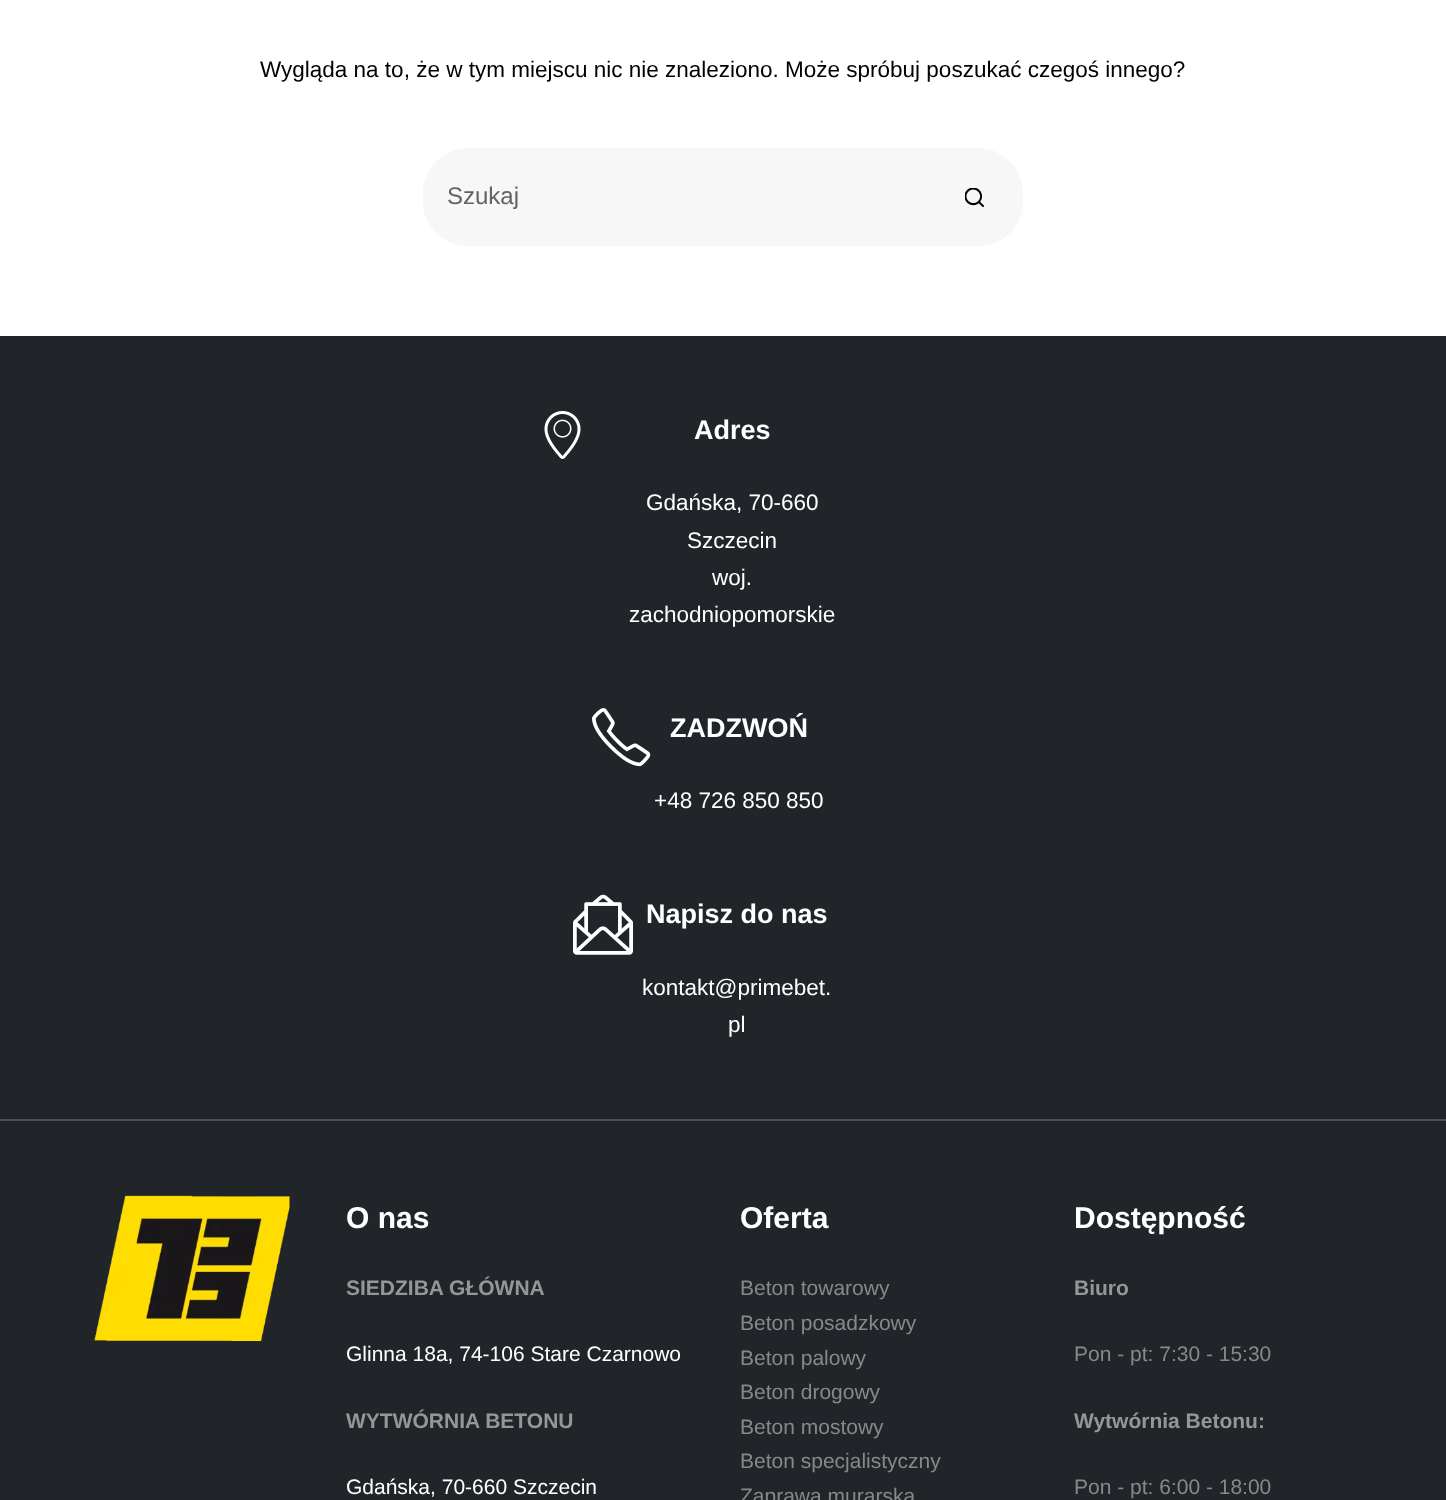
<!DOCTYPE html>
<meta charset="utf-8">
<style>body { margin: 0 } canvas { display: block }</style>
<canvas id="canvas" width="1446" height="1500"></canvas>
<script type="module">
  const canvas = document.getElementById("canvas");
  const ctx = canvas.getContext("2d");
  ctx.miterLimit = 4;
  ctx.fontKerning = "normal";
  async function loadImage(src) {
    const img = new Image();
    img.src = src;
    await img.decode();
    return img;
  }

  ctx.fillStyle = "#ffffff";
  ctx.fillRect(0, 0, 1446, 1500);
  ctx.font = "22.5px Liberation Sans";
  ctx.fillStyle = "#000000";
  ctx.fillText("Wygląda na to, że w tym miejscu nic nie znaleziono. Może spróbuj poszukać czegoś innego?", 260, 77);
  ctx.fillStyle = "#f7f7f7";
  ctx.beginPath();
  ctx.roundRect(423, 149, 503, 97, [45, 0, 0, 45]);
  ctx.fill();
  ctx.beginPath();
  ctx.moveTo(468, 148);
  ctx.lineTo(926, 148);
  ctx.lineTo(926, 246);
  ctx.lineTo(468, 246);
  ctx.bezierCurveTo(443, 246, 423, 226, 423, 201);
  ctx.lineTo(423, 194);
  ctx.bezierCurveTo(423, 169, 443, 148, 468, 148);
  ctx.closePath();
  ctx.moveTo(468, 150);
  ctx.lineTo(926, 150);
  ctx.lineTo(926, 244);
  ctx.lineTo(468, 244);
  ctx.bezierCurveTo(444, 244, 424, 225, 424, 201);
  ctx.lineTo(424, 194);
  ctx.bezierCurveTo(424, 169, 444, 150, 468, 150);
  ctx.closePath();
  ctx.fill("evenodd");
  ctx.font = "24px Liberation Sans";
  ctx.fillStyle = "#636363";
  ctx.fillText("Szukaj", 447, 204);
  ctx.fillStyle = "#f7f7f7";
  ctx.beginPath();
  ctx.roundRect(926, 149, 97, 97, [0, 45, 45, 0]);
  ctx.fill();
  ctx.beginPath();
  ctx.moveTo(926, 148);
  ctx.lineTo(978, 148);
  ctx.bezierCurveTo(1003, 148, 1023, 169, 1023, 194);
  ctx.lineTo(1023, 201);
  ctx.bezierCurveTo(1023, 226, 1003, 246, 978, 246);
  ctx.lineTo(926, 246);
  ctx.closePath();
  ctx.moveTo(926, 150);
  ctx.lineTo(978, 150);
  ctx.bezierCurveTo(1002, 150, 1022, 169, 1022, 194);
  ctx.lineTo(1022, 201);
  ctx.bezierCurveTo(1022, 225, 1002, 244, 978, 244);
  ctx.lineTo(926, 244);
  ctx.closePath();
  ctx.fill("evenodd");
  ctx.drawImage(await loadImage("img1.png"), 965, 188, 19, 19);
  ctx.fillStyle = "#212529";
  ctx.fillRect(0, 336, 1446, 783);
  ctx.drawImage(await loadImage("img2.png"), 544, 411, 37, 48);
  ctx.font = "bold 27px Liberation Sans";
  ctx.fillStyle = "#ffffff";
  ctx.fillText("Adres", 694, 439);
  ctx.font = "22.5px Liberation Sans";
  ctx.fillText("Gdańska, 70-660", 646, 510);
  ctx.fillText("Szczecin", 687, 548);
  ctx.fillText("woj.", 712, 585);
  ctx.fillText("zachodniopomorskie", 629, 622);
  ctx.drawImage(await loadImage("img3.png"), 591, 708, 60, 59);
  ctx.font = "bold 27px Liberation Sans";
  ctx.fillText("ZADZWOŃ", 670, 737);
  ctx.font = "22.5px Liberation Sans";
  ctx.fillText("+48 726 850 850", 654, 808);
  ctx.drawImage(await loadImage("img4.png"), 573, 894, 60, 61);
  ctx.font = "bold 27px Liberation Sans";
  ctx.fillText("Napisz do nas", 646, 923);
  ctx.font = "22.5px Liberation Sans";
  ctx.fillText("kontakt@primebet.", 642, 995);
  ctx.fillText("pl", 728, 1032);
  ctx.fillStyle = "#212529";
  ctx.fillRect(0, 1121, 1446, 379);
  ctx.fillStyle = "#4d5154";
  ctx.fillRect(0, 1119, 1446, 2);
  ctx.drawImage(await loadImage("img5.png"), 94, 1195, 196, 146);
  ctx.font = "bold 30px Liberation Sans";
  ctx.fillStyle = "#ffffff";
  ctx.fillText("O nas", 346, 1228);
  ctx.font = "bold 21px Liberation Sans";
  ctx.fillStyle = "#969696";
  ctx.fillText("SIEDZIBA GŁÓWNA", 346, 1295);
  ctx.font = "21px Liberation Sans";
  ctx.fillStyle = "#ffffff";
  ctx.fillText("Glinna 18a, 74-106 Stare Czarnowo", 346, 1361);
  ctx.font = "bold 21px Liberation Sans";
  ctx.fillStyle = "#969696";
  ctx.fillText("WYTWÓRNIA BETONU", 346, 1428);
  ctx.font = "21px Liberation Sans";
  ctx.fillStyle = "#ffffff";
  ctx.fillText("Gdańska, 70-660 Szczecin", 346, 1494);
  ctx.font = "bold 30px Liberation Sans";
  ctx.fillText("Oferta", 740, 1228);
  ctx.font = "21px Liberation Sans";
  ctx.fillStyle = "#888888";
  ctx.fillText("Beton towarowy", 740, 1295);
  ctx.fillText("Beton posadzkowy", 740, 1330);
  ctx.fillText("Beton palowy", 740, 1365);
  ctx.fillText("Beton drogowy", 740, 1399);
  ctx.fillText("Beton mostowy", 740, 1434);
  ctx.fillText("Beton specjalistyczny", 740, 1468);
  ctx.fillText("Zaprawa murarska", 740, 1503);
  ctx.font = "bold 30px Liberation Sans";
  ctx.fillStyle = "#ffffff";
  ctx.fillText("Dostępność", 1074, 1228);
  ctx.font = "bold 21px Liberation Sans";
  ctx.fillStyle = "#969696";
  ctx.fillText("Biuro", 1074, 1295);
  ctx.font = "21px Liberation Sans";
  ctx.fillStyle = "#888888";
  ctx.fillText("Pon - pt: 7:30 - 15:30", 1074, 1361);
  ctx.font = "bold 21px Liberation Sans";
  ctx.fillStyle = "#969696";
  ctx.fillText("Wytwórnia Betonu:", 1074, 1428);
  ctx.font = "21px Liberation Sans";
  ctx.fillStyle = "#888888";
  ctx.fillText("Pon - pt: 6:00 - 18:00", 1074, 1494);
</script>
